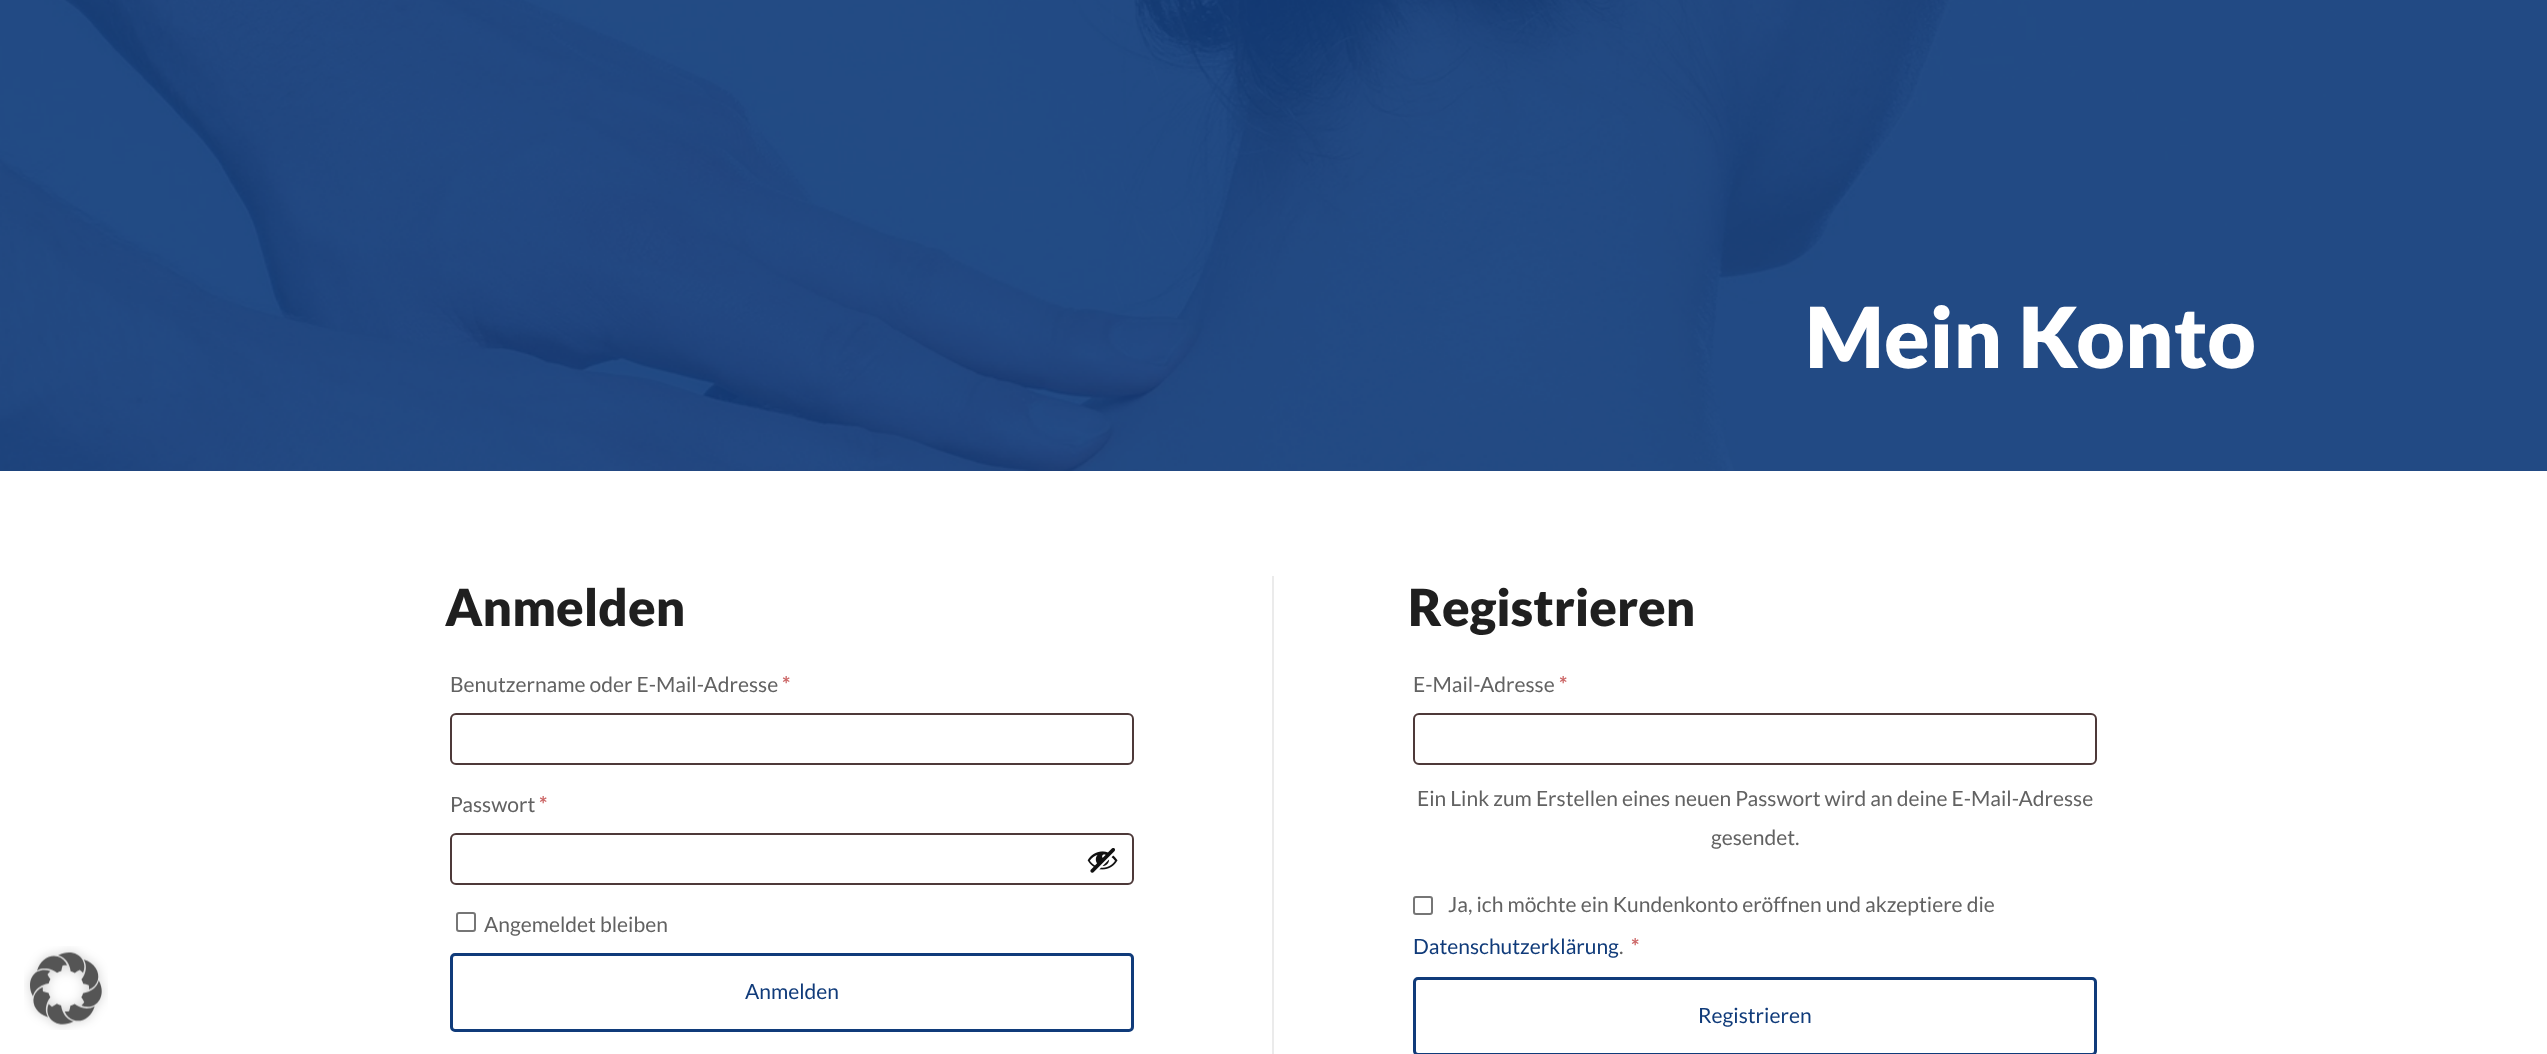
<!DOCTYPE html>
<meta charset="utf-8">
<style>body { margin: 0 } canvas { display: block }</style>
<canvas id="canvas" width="2547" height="1054"></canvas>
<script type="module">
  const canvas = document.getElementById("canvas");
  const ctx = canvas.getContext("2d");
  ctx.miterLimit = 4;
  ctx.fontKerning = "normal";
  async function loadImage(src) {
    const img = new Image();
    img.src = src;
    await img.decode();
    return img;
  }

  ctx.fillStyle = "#ffffff";
  ctx.fillRect(0, 0, 2547, 1054);
  ctx.drawImage(await loadImage("img1.png"), 24, 946, 84, 84);
  ctx.drawImage(await loadImage("img2.png"), 0, 0, 2547, 471);
  ctx.font = "900 84px Lato";
  ctx.fillText("Mein Konto", 1805, 368);
  ctx.font = "900 51px Lato";
  ctx.fillStyle = "#1f1f1f";
  ctx.fillText("Anmelden", 445, 626);
  ctx.fillStyle = "#ebebeb";
  ctx.fillRect(1272, 576, 2, 478);
  ctx.font = "21px Lato";
  ctx.fillStyle = "#626262";
  ctx.fillText("Benutzername oder E-Mail-Adresse", 450, 692);
  ctx.font = "bold 21px Lato";
  ctx.fillStyle = "#cc6666";
  ctx.fillText("*", 782, 692);
  ctx.beginPath();
  ctx.roundRect(451, 714, 682, 50, 5);
  ctx.strokeStyle = "#4d3939";
  ctx.lineWidth = 2;
  ctx.stroke();
  ctx.font = "21px Lato";
  ctx.fillStyle = "#626262";
  ctx.fillText("Passwort", 450, 812);
  ctx.font = "bold 21px Lato";
  ctx.fillStyle = "#cc6666";
  ctx.fillText("*", 539, 812);
  ctx.beginPath();
  ctx.roundRect(451, 834, 682, 50, 5);
  ctx.stroke();
  ctx.drawImage(await loadImage("img3.png"), 1087, 848, 31, 25);
  ctx.beginPath();
  ctx.roundRect(457, 913, 18, 18, 2);
  ctx.strokeStyle = "#767676";
  ctx.stroke();
  ctx.font = "21px Lato";
  ctx.fillStyle = "#626262";
  ctx.fillText("Angemeldet bleiben", 484, 932);
  ctx.beginPath();
  ctx.roundRect(451.5, 954.5, 681, 76, 3.5);
  ctx.strokeStyle = "#103b7a";
  ctx.lineWidth = 3;
  ctx.stroke();
  ctx.fillStyle = "#103b7a";
  ctx.fillText("Anmelden", 745, 999);
  ctx.font = "900 51px Lato";
  ctx.fillStyle = "#1f1f1f";
  ctx.fillText("Registrieren", 1408, 626);
  ctx.font = "21px Lato";
  ctx.fillStyle = "#626262";
  ctx.fillText("E-Mail-Adresse", 1413, 692);
  ctx.font = "bold 21px Lato";
  ctx.fillStyle = "#cc6666";
  ctx.fillText("*", 1559, 692);
  ctx.beginPath();
  ctx.roundRect(1414, 714, 682, 50, 5);
  ctx.strokeStyle = "#4d3939";
  ctx.lineWidth = 2;
  ctx.stroke();
  ctx.font = "21px Lato";
  ctx.fillStyle = "#626262";
  ctx.fillText("Ein Link zum Erstellen eines neuen Passwort wird an deine E-Mail-Adresse", 1417, 806);
  ctx.fillText("gesendet.", 1711, 845);
  ctx.beginPath();
  ctx.roundRect(1414, 897, 18, 17, 2);
  ctx.strokeStyle = "#767676";
  ctx.stroke();
  ctx.fillText("Ja, ich möchte ein Kundenkonto eröffnen und akzeptiere die", 1448, 912);
  ctx.fillStyle = "#103b7a";
  ctx.fillText("Datenschutzerklärung", 1413, 954);
  ctx.font = "bold 21px Lato";
  ctx.fillStyle = "#cc6666";
  ctx.fillText("*", 1631, 954);
  ctx.font = "21px Lato";
  ctx.fillStyle = "#626262";
  ctx.fillText(".", 1619, 954);
  ctx.beginPath();
  ctx.roundRect(1414.5, 978.5, 681, 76, 3.5);
  ctx.strokeStyle = "#103b7a";
  ctx.lineWidth = 3;
  ctx.stroke();
  ctx.fillStyle = "#103b7a";
  ctx.fillText("Registrieren", 1698, 1023);
</script>
